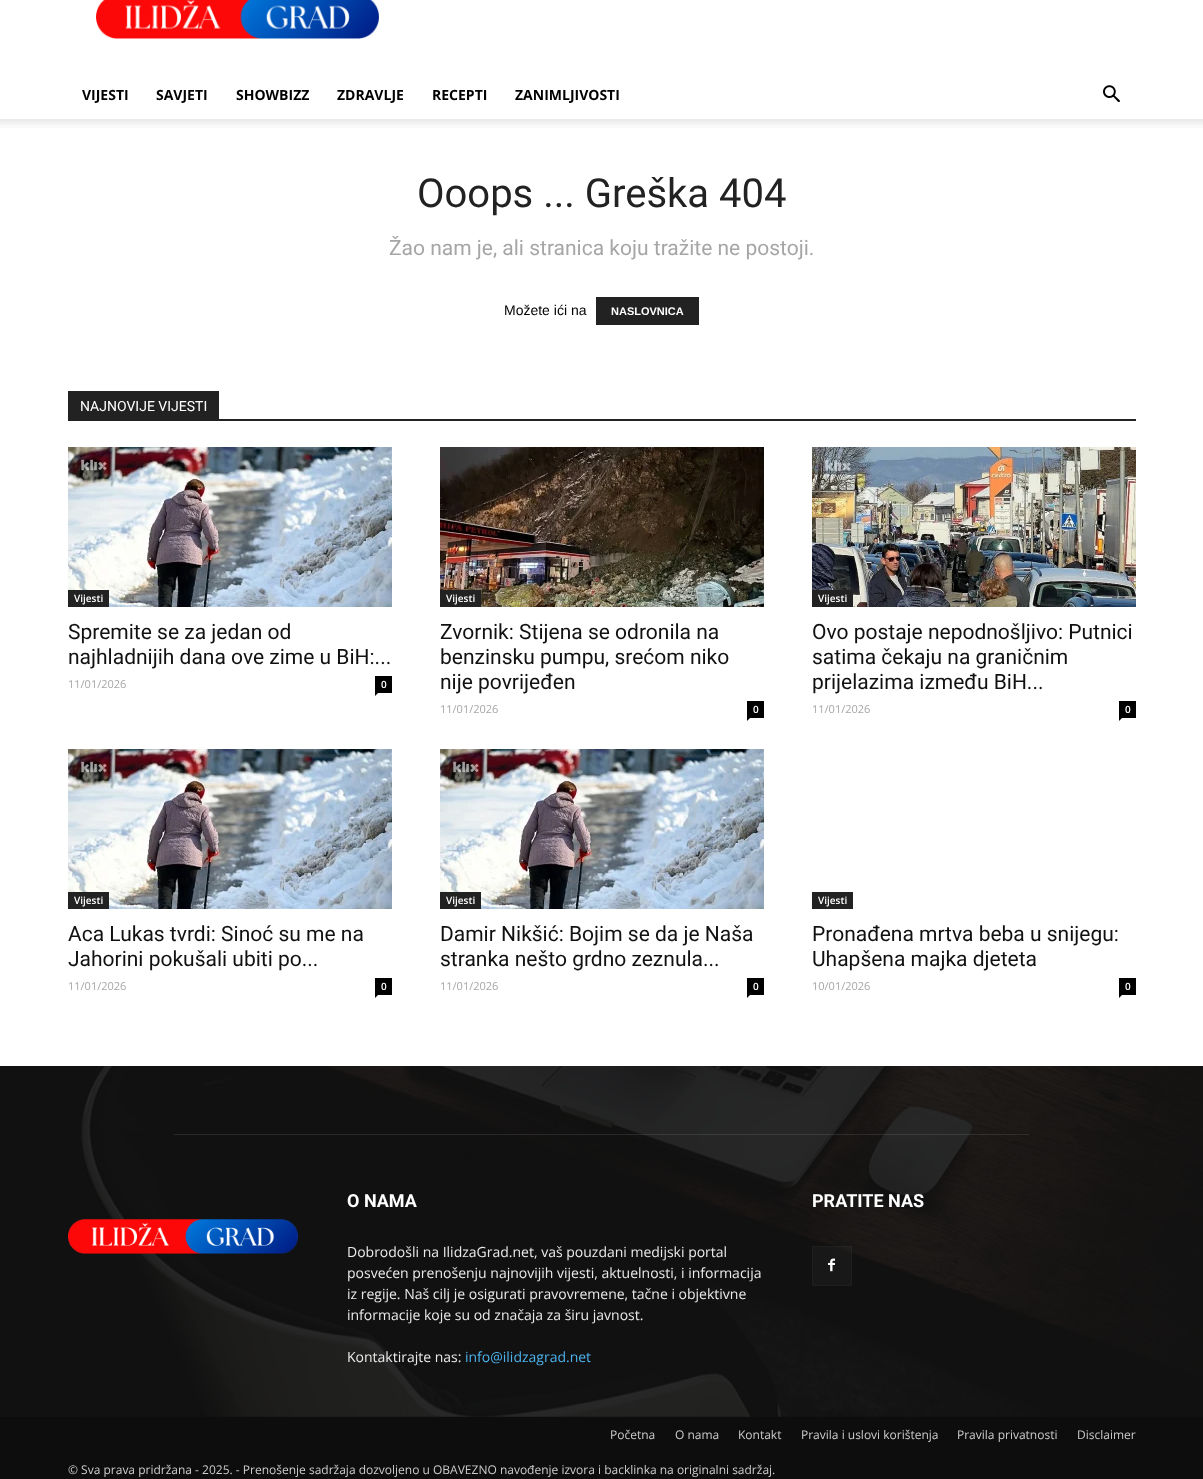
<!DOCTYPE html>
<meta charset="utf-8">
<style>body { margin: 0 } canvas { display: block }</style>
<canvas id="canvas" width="1203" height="1479"></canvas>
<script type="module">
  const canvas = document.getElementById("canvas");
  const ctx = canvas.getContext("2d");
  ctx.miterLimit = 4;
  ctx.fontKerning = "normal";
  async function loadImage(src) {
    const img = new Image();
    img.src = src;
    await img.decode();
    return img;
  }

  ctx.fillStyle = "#ffffff";
  ctx.fillRect(0, 0, 1203, 1479);
  ctx.drawImage(await loadImage("img1.png"), 96, 0, 283, 39);
  ctx.font = "bold 14px Open Sans";
  ctx.fillStyle = "#000000";
  ctx.fillText("VIJESTI", 82, 100);
  ctx.fillText("SAVJETI", 156, 100);
  ctx.fillText("SHOWBIZZ", 236, 100);
  ctx.fillText("ZDRAVLJE", 337, 100);
  ctx.fillText("RECEPTI", 432, 100);
  ctx.fillText("ZANIMLJIVOSTI", 515, 100);
  ctx.drawImage(await loadImage("img2.png"), 1103, 85, 17, 18);
  ctx.drawImage(await loadImage("img3.png"), 0, 119, 1203, 9);
  ctx.font = "40px Roboto";
  ctx.fillStyle = "#222222";
  ctx.fillText("Ooops ... Greška 404", 417, 207);
  ctx.font = "21px Roboto";
  ctx.fillStyle = "#a6a6a6";
  ctx.fillText("Žao nam je, ali stranica koju tražite ne postoji.", 389, 255);
  ctx.font = "14px Liberation Sans";
  ctx.fillStyle = "#000000";
  ctx.fillText("Možete ići na", 504, 315);
  ctx.fillStyle = "#222222";
  ctx.fillRect(596, 297, 103, 28);
  ctx.font = "bold 11px Liberation Sans";
  ctx.fillStyle = "#ffffff";
  ctx.fillText("NASLOVNICA", 611, 315);
  ctx.fillStyle = "#222222";
  ctx.fillRect(68, 419, 1068, 2);
  ctx.fillRect(68, 391, 151, 28);
  ctx.font = "14px Roboto";
  ctx.fillStyle = "#ffffff";
  ctx.fillText("NAJNOVIJE VIJESTI", 80, 411);
  ctx.drawImage(await loadImage("img4.png"), 68, 447, 324, 160);
  ctx.fillStyle = "#222222";
  ctx.fillRect(68, 590, 41, 17);
  ctx.font = "600 10px Open Sans";
  ctx.fillStyle = "#ffffff";
  ctx.fillText("Vijesti", 74, 602);
  ctx.font = "21px Roboto";
  ctx.fillStyle = "#111111";
  ctx.fillText("Spremite se za jedan od", 68, 639);
  ctx.fillText("najhladnijih dana ove zime u BiH:...", 68, 664);
  ctx.font = "11px Open Sans";
  ctx.fillStyle = "#a6a6a6";
  ctx.fillText("11/01/2026", 68, 688);
  ctx.fillStyle = "#000000";
  ctx.fillRect(375, 676, 17, 17);
  ctx.font = "600 10px Open Sans";
  ctx.fillStyle = "#ffffff";
  ctx.fillText("0", 381, 688);
  ctx.fillStyle = "#000000";
  ctx.beginPath();
  ctx.moveTo(375, 693);
  ctx.lineTo(378, 693);
  ctx.lineTo(375, 696);
  ctx.closePath();
  ctx.fill();
  ctx.drawImage(await loadImage("img5.png"), 440, 447, 324, 160);
  ctx.fillStyle = "#222222";
  ctx.fillRect(440, 590, 41, 17);
  ctx.fillStyle = "#ffffff";
  ctx.fillText("Vijesti", 446, 602);
  ctx.font = "21px Roboto";
  ctx.fillStyle = "#111111";
  ctx.fillText("Zvornik: Stijena se odronila na", 440, 639);
  ctx.fillText("benzinsku pumpu, srećom niko", 440, 664);
  ctx.fillText("nije povrijeđen", 440, 689);
  ctx.font = "11px Open Sans";
  ctx.fillStyle = "#a6a6a6";
  ctx.fillText("11/01/2026", 440, 713);
  ctx.fillStyle = "#000000";
  ctx.fillRect(747, 701, 17, 17);
  ctx.font = "600 10px Open Sans";
  ctx.fillStyle = "#ffffff";
  ctx.fillText("0", 753, 713);
  ctx.fillStyle = "#000000";
  ctx.beginPath();
  ctx.moveTo(747, 718);
  ctx.lineTo(750, 718);
  ctx.lineTo(747, 721);
  ctx.closePath();
  ctx.fill();
  ctx.drawImage(await loadImage("img6.png"), 812, 447, 324, 160);
  ctx.fillStyle = "#222222";
  ctx.fillRect(812, 590, 41, 17);
  ctx.fillStyle = "#ffffff";
  ctx.fillText("Vijesti", 818, 602);
  ctx.font = "21px Roboto";
  ctx.fillStyle = "#111111";
  ctx.fillText("Ovo postaje nepodnošljivo: Putnici", 812, 639);
  ctx.fillText("satima čekaju na graničnim", 812, 664);
  ctx.fillText("prijelazima između BiH...", 812, 689);
  ctx.font = "11px Open Sans";
  ctx.fillStyle = "#a6a6a6";
  ctx.fillText("11/01/2026", 812, 713);
  ctx.fillStyle = "#000000";
  ctx.fillRect(1119, 701, 17, 17);
  ctx.font = "600 10px Open Sans";
  ctx.fillStyle = "#ffffff";
  ctx.fillText("0", 1125, 713);
  ctx.fillStyle = "#000000";
  ctx.beginPath();
  ctx.moveTo(1119, 718);
  ctx.lineTo(1122, 718);
  ctx.lineTo(1119, 721);
  ctx.closePath();
  ctx.fill();
  ctx.drawImage(await loadImage("img4.png"), 68, 749, 324, 160);
  ctx.fillStyle = "#222222";
  ctx.fillRect(68, 892, 41, 17);
  ctx.fillStyle = "#ffffff";
  ctx.fillText("Vijesti", 74, 904);
  ctx.font = "21px Roboto";
  ctx.fillStyle = "#111111";
  ctx.fillText("Aca Lukas tvrdi: Sinoć su me na", 68, 941);
  ctx.fillText("Jahorini pokušali ubiti po...", 68, 966);
  ctx.font = "11px Open Sans";
  ctx.fillStyle = "#a6a6a6";
  ctx.fillText("11/01/2026", 68, 990);
  ctx.fillStyle = "#000000";
  ctx.fillRect(375, 978, 17, 17);
  ctx.font = "600 10px Open Sans";
  ctx.fillStyle = "#ffffff";
  ctx.fillText("0", 381, 990);
  ctx.fillStyle = "#000000";
  ctx.beginPath();
  ctx.moveTo(375, 995);
  ctx.lineTo(378, 995);
  ctx.lineTo(375, 998);
  ctx.closePath();
  ctx.fill();
  ctx.drawImage(await loadImage("img4.png"), 440, 749, 324, 160);
  ctx.fillStyle = "#222222";
  ctx.fillRect(440, 892, 41, 17);
  ctx.fillStyle = "#ffffff";
  ctx.fillText("Vijesti", 446, 904);
  ctx.font = "21px Roboto";
  ctx.fillStyle = "#111111";
  ctx.fillText("Damir Nikšić: Bojim se da je Naša", 440, 941);
  ctx.fillText("stranka nešto grdno zeznula...", 440, 966);
  ctx.font = "11px Open Sans";
  ctx.fillStyle = "#a6a6a6";
  ctx.fillText("11/01/2026", 440, 990);
  ctx.fillStyle = "#000000";
  ctx.fillRect(747, 978, 17, 17);
  ctx.font = "600 10px Open Sans";
  ctx.fillStyle = "#ffffff";
  ctx.fillText("0", 753, 990);
  ctx.fillStyle = "#000000";
  ctx.beginPath();
  ctx.moveTo(747, 995);
  ctx.lineTo(750, 995);
  ctx.lineTo(747, 998);
  ctx.closePath();
  ctx.fill();
  ctx.fillStyle = "#222222";
  ctx.fillRect(812, 892, 41, 17);
  ctx.fillStyle = "#ffffff";
  ctx.fillText("Vijesti", 818, 904);
  ctx.font = "21px Roboto";
  ctx.fillStyle = "#111111";
  ctx.fillText("Pronađena mrtva beba u snijegu:", 812, 941);
  ctx.fillText("Uhapšena majka djeteta", 812, 966);
  ctx.font = "11px Open Sans";
  ctx.fillStyle = "#a6a6a6";
  ctx.fillText("10/01/2026", 812, 990);
  ctx.fillStyle = "#000000";
  ctx.fillRect(1119, 978, 17, 17);
  ctx.font = "600 10px Open Sans";
  ctx.fillStyle = "#ffffff";
  ctx.fillText("0", 1125, 990);
  ctx.fillStyle = "#000000";
  ctx.beginPath();
  ctx.moveTo(1119, 995);
  ctx.lineTo(1122, 995);
  ctx.lineTo(1119, 998);
  ctx.closePath();
  ctx.fill();
  ctx.fillStyle = "#111111";
  ctx.fillRect(0, 1066, 1203, 351);
  ctx.drawImage(await loadImage("img7.png"), 81, 1066, 1122, 351);
  ctx.fillStyle = "rgba(255, 255, 255, 0.1)";
  ctx.fillRect(174, 1134, 855, 1);
  ctx.font = "bold 18px Roboto";
  ctx.fillStyle = "#ffffff";
  ctx.fillText("O NAMA", 347, 1207);
  ctx.font = "14px Open Sans";
  ctx.fillStyle = "#eaeaea";
  ctx.fillText("Dobrodošli na IlidzaGrad.net, vaš pouzdani medijski portal", 347, 1257);
  ctx.fillText("posvećen prenošenju najnovijih vijesti, aktuelnosti, i informacija", 347, 1278);
  ctx.fillText("iz regije. Naš cilj je osigurati pravovremene, tačne i objektivne", 347, 1299);
  ctx.fillText("informacije koje su od značaja za širu javnost.", 347, 1320);
  ctx.fillText("Kontaktirajte nas:", 347, 1362);
  ctx.fillStyle = "#4db2ec";
  ctx.fillText("info@ilidzagrad.net", 465, 1362);
  ctx.font = "bold 18px Roboto";
  ctx.fillStyle = "#ffffff";
  ctx.fillText("PRATITE NAS", 812, 1207);
  ctx.fillStyle = "rgba(255, 255, 255, 0.03)";
  ctx.fillRect(812, 1246, 40, 40);
  ctx.drawImage(await loadImage("img8.png"), 828, 1258, 7, 14);
  ctx.strokeStyle = "rgba(255, 255, 255, 0.03)";
  ctx.strokeRect(812.5, 1246.5, 39, 39);
  ctx.drawImage(await loadImage("img9.png"), 68, 1219, 230, 35);
  ctx.fillStyle = "#0d0d0d";
  ctx.fillRect(0, 1417, 1203, 62);
  ctx.font = "12px Open Sans";
  ctx.fillStyle = "#cccccc";
  ctx.fillText("Početna", 610, 1439);
  ctx.fillText("O nama", 675, 1439);
  ctx.fillText("Kontakt", 738, 1439);
  ctx.fillText("Pravila i uslovi korištenja", 801, 1439);
  ctx.fillText("Pravila privatnosti", 957, 1439);
  ctx.fillText("Disclaimer", 1077, 1439);
  ctx.fillText("© Sva prava pridržana - 2025. - Prenošenje sadržaja dozvoljeno u OBAVEZNO navođenje izvora i backlinka na originalni sadržaj.", 68, 1474);
</script>
